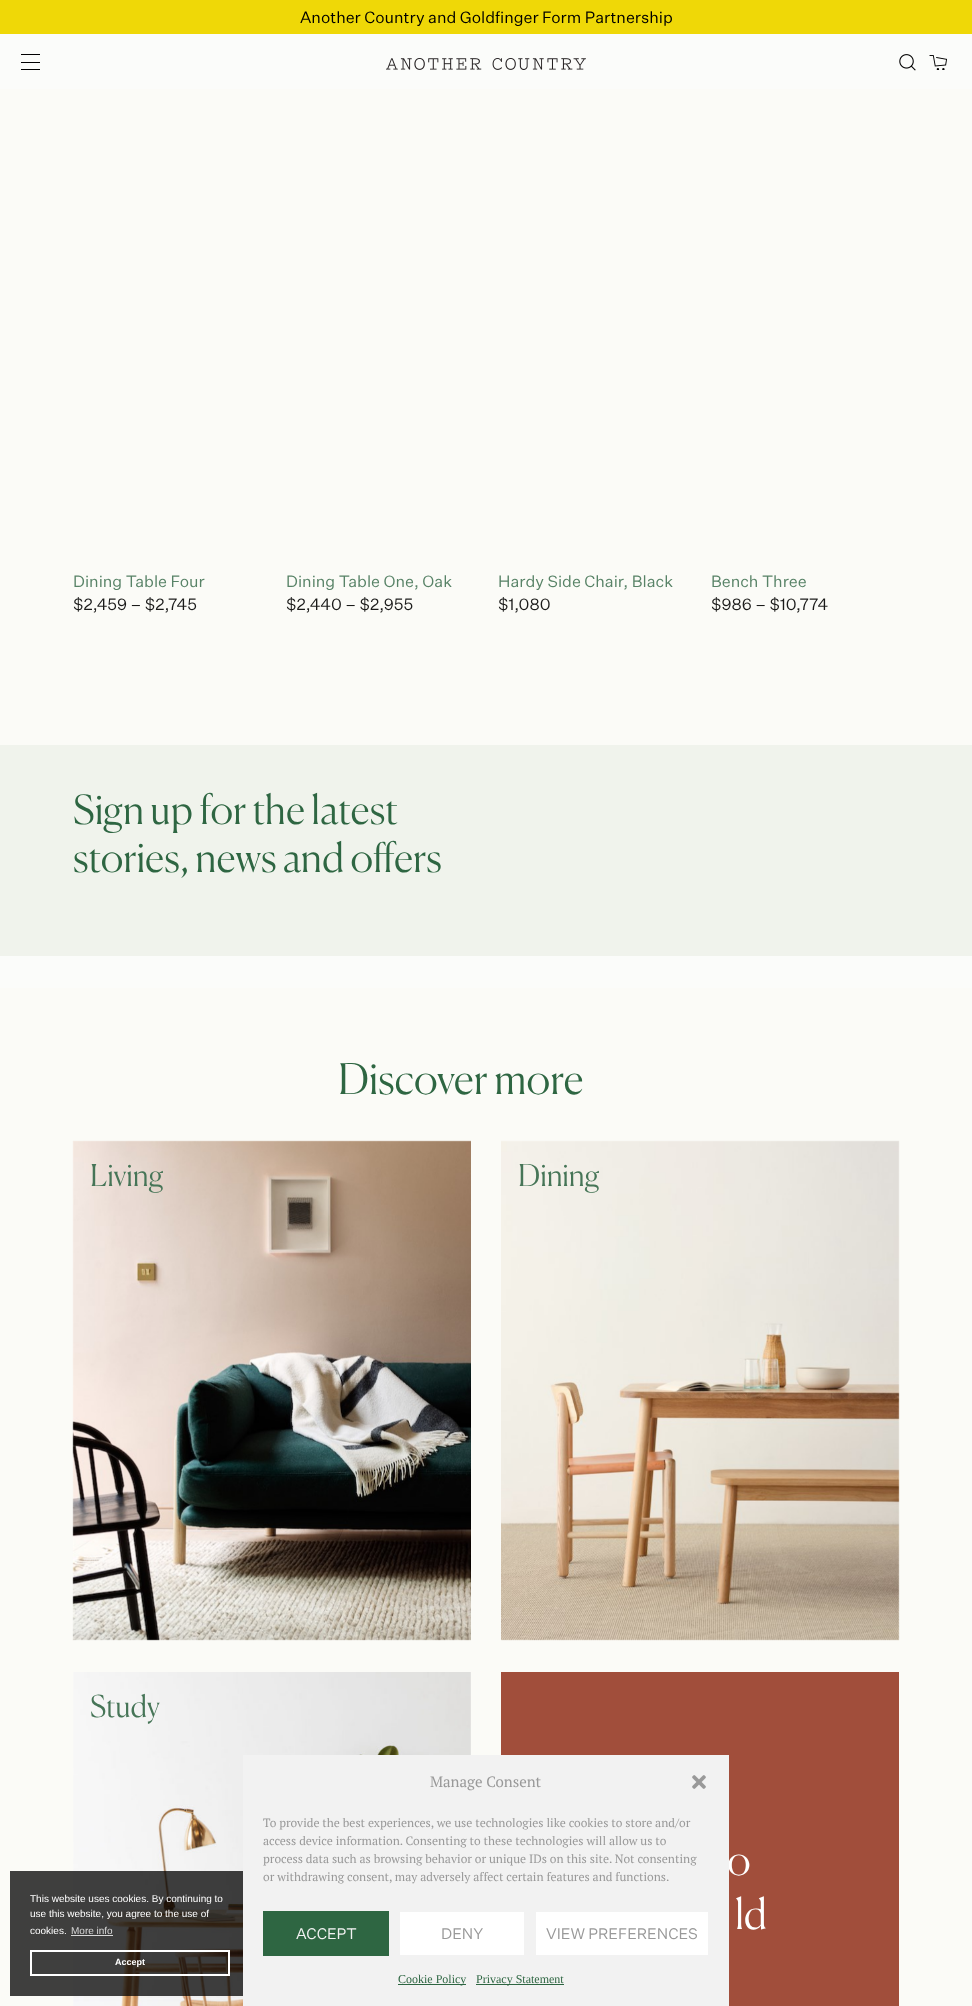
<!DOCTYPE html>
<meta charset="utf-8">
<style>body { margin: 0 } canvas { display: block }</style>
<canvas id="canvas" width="972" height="2006"></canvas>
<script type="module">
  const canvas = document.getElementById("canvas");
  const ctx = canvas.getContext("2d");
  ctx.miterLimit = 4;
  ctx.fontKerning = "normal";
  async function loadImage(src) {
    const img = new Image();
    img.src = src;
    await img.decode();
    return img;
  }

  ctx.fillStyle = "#fbfcfa";
  ctx.fillRect(0, 0, 972, 2006);
  ctx.fillStyle = "#efd807";
  ctx.fillRect(0, 0, 972, 34);
  ctx.font = "16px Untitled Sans";
  ctx.fillStyle = "#000000";
  ctx.fillText("Another Country and Goldfinger Form Partnership", 300, 23);
  ctx.fillRect(21, 54, 19, 1);
  ctx.fillRect(21, 62, 19, 1);
  ctx.fillRect(21, 69, 19, 1);
  ctx.drawImage(await loadImage("img1.png"), 386, 58, 200, 12);
  ctx.drawImage(await loadImage("img2.png"), 899, 54, 17, 17);
  ctx.drawImage(await loadImage("img3.png"), 929, 55, 18, 15);
  ctx.fillStyle = "#fbfbf7";
  ctx.fillRect(0, 89, 972, 656);
  ctx.fillStyle = "#588367";
  ctx.fillText("Dining Table Four", 73, 587);
  ctx.fillStyle = "#1a1a19";
  ctx.fillText("$2,459 – $2,745", 73, 610);
  ctx.fillStyle = "#588367";
  ctx.fillText("Dining Table One, Oak", 286, 587);
  ctx.fillStyle = "#1a1a19";
  ctx.fillText("$2,440 – $2,955", 286, 610);
  ctx.fillStyle = "#588367";
  ctx.fillText("Hardy Side Chair, Black", 498, 587);
  ctx.fillStyle = "#1a1a19";
  ctx.fillText("$1,080", 498, 610);
  ctx.fillStyle = "#588367";
  ctx.fillText("Bench Three", 711, 587);
  ctx.fillStyle = "#1a1a19";
  ctx.fillText("$986 – $10,774", 711, 610);
  ctx.fillStyle = "#f0f3ec";
  ctx.fillRect(0, 745, 972, 211);
  ctx.font = "300 40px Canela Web";
  ctx.fillStyle = "#2e6642";
  ctx.fillText("Sign up for the latest", 73, 824);
  ctx.fillText("stories, news and offers", 73, 872);
  ctx.fillStyle = "#fbfbf7";
  ctx.fillRect(0, 988, 972, 1018);
  ctx.font = "300 42px Canela Web";
  ctx.fillStyle = "#2e6642";
  ctx.fillText("Discover more", 338, 1094);
  ctx.drawImage(await loadImage("img4.png"), 72, 1140, 399, 501);
  ctx.font = "300 30px Canela Web";
  ctx.fillStyle = "#467557";
  ctx.fillText("Living", 90, 1186);
  ctx.drawImage(await loadImage("img5.png"), 501, 1140, 399, 501);
  ctx.fillText("Dining", 518, 1186);
  ctx.drawImage(await loadImage("img6.png"), 73, 1672, 398, 334);
  ctx.fillText("Study", 90, 1717);
  ctx.fillStyle = "#a14e3b";
  ctx.fillRect(501, 1672, 398, 334);
  ctx.font = "300 42px Canela Web";
  ctx.fillStyle = "#ffffff";
  ctx.fillText("o", 727, 1875);
  ctx.fillText("ld", 735, 1929);
  ctx.fillStyle = "rgba(0, 0, 0, 0.75)";
  ctx.fillRect(10, 1871, 233, 125);
  ctx.font = "10px Liberation Sans";
  ctx.fillStyle = "#ffffff";
  ctx.fillText("This website uses cookies. By continuing to", 30, 1902);
  ctx.fillText("use this website, you agree to the use of", 30, 1917);
  ctx.fillText("cookies.", 30, 1934);
  ctx.fillStyle = "#d8d8d8";
  ctx.fillText("More info", 71, 1934);
  ctx.fillRect(71, 1935, 42, 1);
  ctx.strokeStyle = "#ffffff";
  ctx.lineWidth = 2;
  ctx.strokeRect(31, 1951, 198, 24);
  ctx.font = "bold 9px Liberation Sans";
  ctx.fillStyle = "#ffffff";
  ctx.fillText("Accept", 115, 1965);
  ctx.fillStyle = "#f2f2f2";
  ctx.fillRect(243, 1755, 486, 251);
  ctx.font = "15px PT Serif";
  ctx.fillStyle = "#999999";
  ctx.fillText("Manage Consent", 430, 1787);
  ctx.drawImage(await loadImage("img7.png"), 692, 1775, 14, 14);
  ctx.font = "12px PT Serif";
  ctx.fillText("To provide the best experiences, we use technologies like cookies to store and/or", 263, 1827);
  ctx.fillText("access device information. Consenting to these technologies will allow us to", 263, 1845);
  ctx.fillText("process data such as browsing behavior or unique IDs on this site. Not consenting", 263, 1863);
  ctx.fillText("or withdrawing consent, may adversely affect certain features and functions.", 263, 1881);
  ctx.fillStyle = "#2e6642";
  ctx.fillRect(263, 1911, 126, 45);
  ctx.font = "15px Untitled Sans";
  ctx.fillStyle = "#f2f2f2";
  ctx.fillText("ACCEPT", 296, 1939);
  ctx.fillStyle = "#ffffff";
  ctx.fillRect(400, 1912, 124, 43);
  ctx.fillStyle = "#999999";
  ctx.fillText("DENY", 441, 1939);
  ctx.fillStyle = "#ffffff";
  ctx.fillRect(536, 1912, 172, 43);
  ctx.fillStyle = "#999999";
  ctx.fillText("VIEW PREFERENCES", 546, 1939);
  ctx.fillStyle = "#2e6642";
  ctx.fillRect(398, 1984, 68, 1);
  ctx.font = "12px Liberation Serif";
  ctx.fillText("Cookie Policy", 398, 1983);
  ctx.fillRect(476, 1984, 88, 1);
  ctx.fillText("Privacy Statement", 476, 1983);
</script>
